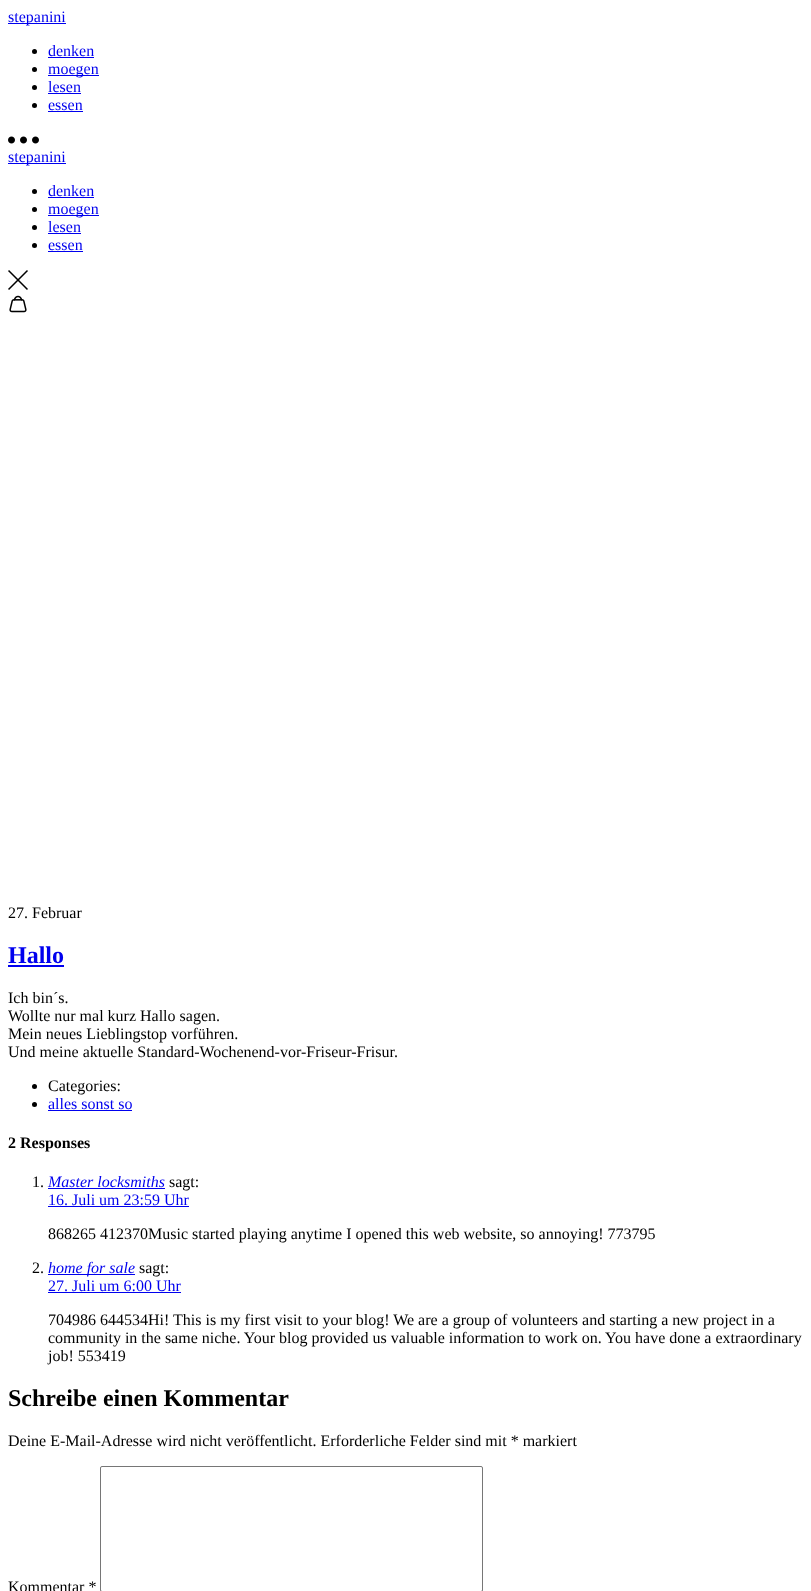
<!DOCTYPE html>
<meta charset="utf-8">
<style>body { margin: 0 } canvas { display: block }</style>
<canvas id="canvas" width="811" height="1591"></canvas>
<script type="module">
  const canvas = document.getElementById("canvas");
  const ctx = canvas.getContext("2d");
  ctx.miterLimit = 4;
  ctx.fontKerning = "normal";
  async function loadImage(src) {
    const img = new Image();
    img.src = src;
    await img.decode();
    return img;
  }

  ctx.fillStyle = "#ffffff";
  ctx.fillRect(0, 0, 811, 1591);
  ctx.fillStyle = "#0000ee";
  ctx.fillRect(8, 23, 58, 1);
  ctx.font = "16px Liberation Serif";
  ctx.fillText("stepanini", 8, 22);
  ctx.fillStyle = "#000000";
  ctx.beginPath();
  ctx.arc(34.5, 51.5, 2.5, 0, Math.PI * 2);
  ctx.fill();
  ctx.fillStyle = "#0000ee";
  ctx.fillText("denken", 48, 56);
  ctx.fillRect(48, 57, 46, 1);
  ctx.fillStyle = "#000000";
  ctx.beginPath();
  ctx.arc(34.5, 69.5, 2.5, 0, Math.PI * 2);
  ctx.fill();
  ctx.fillStyle = "#0000ee";
  ctx.fillRect(48, 75, 51, 1);
  ctx.fillText("moegen", 48, 74);
  ctx.fillStyle = "#000000";
  ctx.beginPath();
  ctx.arc(34.5, 87.5, 2.5, 0, Math.PI * 2);
  ctx.fill();
  ctx.fillStyle = "#0000ee";
  ctx.fillText("lesen", 48, 92);
  ctx.fillRect(48, 93, 33, 1);
  ctx.fillStyle = "#000000";
  ctx.beginPath();
  ctx.arc(34.5, 105.5, 2.5, 0, Math.PI * 2);
  ctx.fill();
  ctx.fillStyle = "#0000ee";
  ctx.fillText("essen", 48, 110);
  ctx.fillRect(48, 111, 35, 1);
  ctx.drawImage(await loadImage("img1.png"), 8, 136, 31, 8);
  ctx.fillRect(8, 163, 58, 1);
  ctx.fillText("stepanini", 8, 162);
  ctx.fillStyle = "#000000";
  ctx.beginPath();
  ctx.arc(34.5, 191.5, 2.5, 0, Math.PI * 2);
  ctx.fill();
  ctx.fillStyle = "#0000ee";
  ctx.fillText("denken", 48, 196);
  ctx.fillRect(48, 197, 46, 1);
  ctx.fillStyle = "#000000";
  ctx.beginPath();
  ctx.arc(34.5, 209.5, 2.5, 0, Math.PI * 2);
  ctx.fill();
  ctx.fillStyle = "#0000ee";
  ctx.fillRect(48, 215, 51, 1);
  ctx.fillText("moegen", 48, 214);
  ctx.fillStyle = "#000000";
  ctx.beginPath();
  ctx.arc(34.5, 227.5, 2.5, 0, Math.PI * 2);
  ctx.fill();
  ctx.fillStyle = "#0000ee";
  ctx.fillText("lesen", 48, 232);
  ctx.fillRect(48, 233, 33, 1);
  ctx.fillStyle = "#000000";
  ctx.beginPath();
  ctx.arc(34.5, 245.5, 2.5, 0, Math.PI * 2);
  ctx.fill();
  ctx.fillStyle = "#0000ee";
  ctx.fillText("essen", 48, 250);
  ctx.fillRect(48, 251, 35, 1);
  ctx.drawImage(await loadImage("img2.png"), 8, 270, 20, 20);
  ctx.drawImage(await loadImage("img3.png"), 9, 295, 18, 18);
  ctx.fillStyle = "#000000";
  ctx.fillText("27. Februar", 8, 918);
  ctx.font = "bold 24px Liberation Serif";
  ctx.fillStyle = "#0000ee";
  ctx.fillText("Hallo", 8, 963);
  ctx.fillRect(8, 965, 56, 2);
  ctx.font = "16px Liberation Serif";
  ctx.fillStyle = "#000000";
  ctx.fillText("Ich bin´s.", 8, 1003);
  ctx.fillText("Wollte nur mal kurz Hallo sagen.", 8, 1021);
  ctx.fillText("Mein neues Lieblingstop vorführen.", 8, 1039);
  ctx.fillText("Und meine aktuelle Standard-Wochenend-vor-Friseur-Frisur.", 8, 1057);
  ctx.beginPath();
  ctx.arc(34.5, 1086.5, 2.5, 0, Math.PI * 2);
  ctx.fill();
  ctx.fillText("Categories:", 48, 1091);
  ctx.beginPath();
  ctx.arc(34.5, 1104.5, 2.5, 0, Math.PI * 2);
  ctx.fill();
  ctx.fillStyle = "#0000ee";
  ctx.fillText("alles sonst so", 48, 1109);
  ctx.fillRect(48, 1110, 84, 1);
  ctx.font = "bold 16px Liberation Serif";
  ctx.fillStyle = "#000000";
  ctx.fillText("2 Responses", 8, 1148);
  ctx.font = "16px Liberation Serif";
  ctx.fillText("1.", 32, 1187);
  ctx.font = "italic 16px Liberation Serif";
  ctx.fillStyle = "#0000ee";
  ctx.fillText("Master locksmiths", 48, 1187);
  ctx.fillRect(48, 1188, 117, 1);
  ctx.font = "16px Liberation Serif";
  ctx.fillStyle = "#000000";
  ctx.fillText("sagt:", 169, 1187);
  ctx.fillStyle = "#0000ee";
  ctx.fillText("16. Juli um 23:59 Uhr", 48, 1205);
  ctx.fillRect(48, 1206, 141, 1);
  ctx.fillStyle = "#000000";
  ctx.fillText("868265 412370Music started playing anytime I opened this web website, so annoying! 773795", 48, 1239);
  ctx.fillText("2.", 32, 1273);
  ctx.fillStyle = "#0000ee";
  ctx.fillRect(48, 1274, 87, 1);
  ctx.font = "italic 16px Liberation Serif";
  ctx.fillText("home for sale", 48, 1273);
  ctx.font = "16px Liberation Serif";
  ctx.fillStyle = "#000000";
  ctx.fillText("sagt:", 139, 1273);
  ctx.fillStyle = "#0000ee";
  ctx.fillText("27. Juli um 6:00 Uhr", 48, 1291);
  ctx.fillRect(48, 1292, 133, 1);
  ctx.fillStyle = "#000000";
  ctx.fillText("704986 644534Hi! This is my first visit to your blog! We are a group of volunteers and starting a new project in a", 48, 1325);
  ctx.fillText("community in the same niche. Your blog provided us valuable information to work on. You have done a extraordinary", 48, 1343);
  ctx.fillText("job! 553419", 48, 1361);
  ctx.font = "bold 24px Liberation Serif";
  ctx.fillText("Schreibe einen Kommentar", 8, 1406);
  ctx.font = "16px Liberation Serif";
  ctx.fillText("Deine E-Mail-Adresse wird nicht veröffentlicht. Erforderliche Felder sind mit * markiert", 8, 1446);
  ctx.fillText("Kommentar *", 8, 1592);
  ctx.beginPath();
  ctx.roundRect(100.5, 1466.5, 382, 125, 1.5);
  ctx.strokeStyle = "#767676";
  ctx.stroke();
</script>
